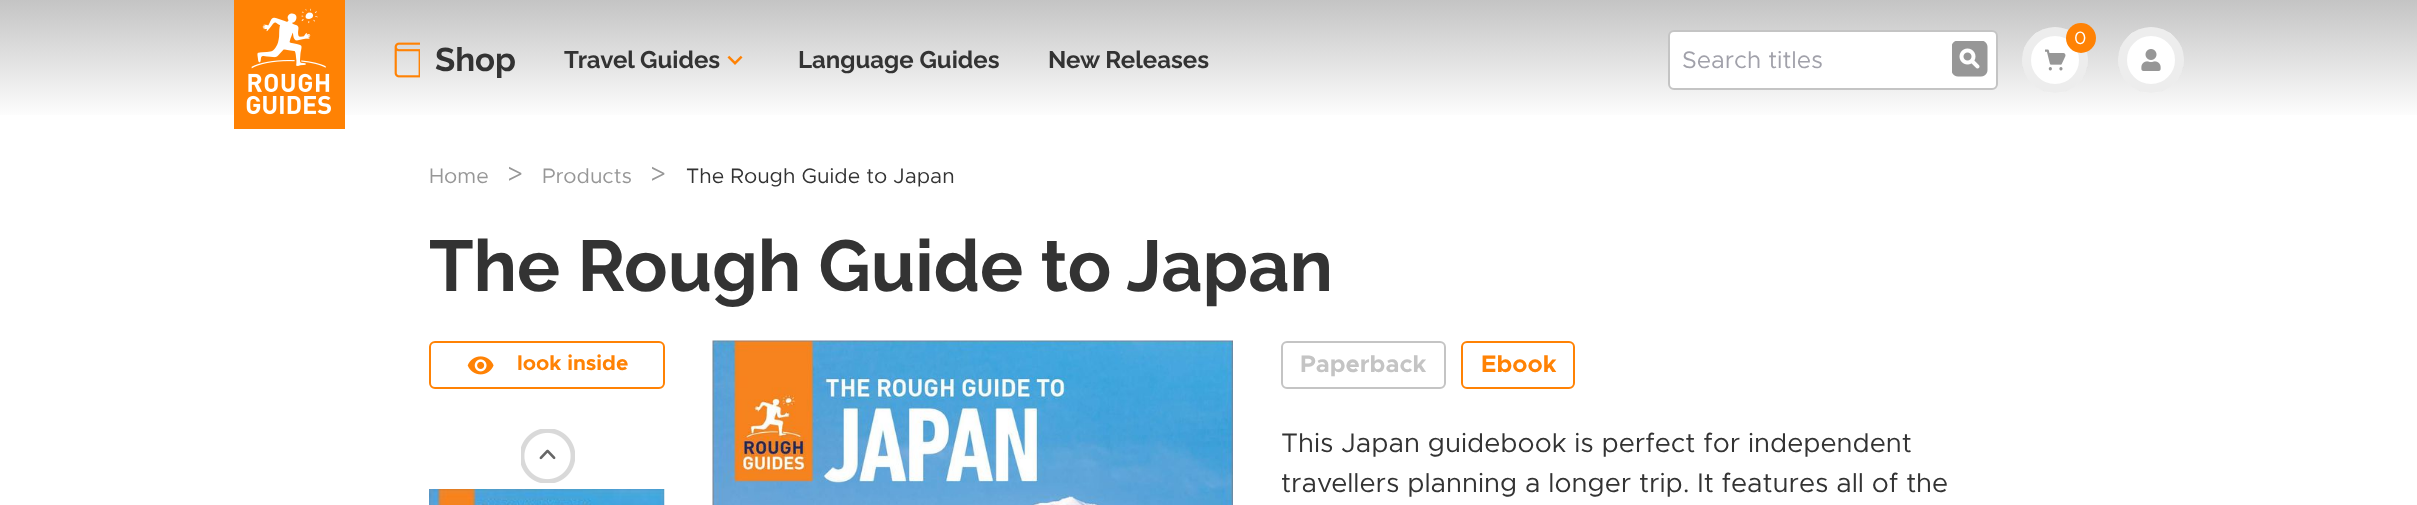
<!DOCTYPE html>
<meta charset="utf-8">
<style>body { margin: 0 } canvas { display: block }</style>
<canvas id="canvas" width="2417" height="505"></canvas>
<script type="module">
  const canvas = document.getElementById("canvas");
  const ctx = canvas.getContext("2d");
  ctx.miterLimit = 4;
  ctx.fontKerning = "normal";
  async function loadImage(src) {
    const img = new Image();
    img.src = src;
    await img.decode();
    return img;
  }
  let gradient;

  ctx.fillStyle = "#ffffff";
  ctx.fillRect(0, 0, 2417, 505);
  gradient = ctx.createLinearGradient(1209, 0, 1209, 120);
  gradient.addColorStop(0, "#c4c4c4");
  gradient.addColorStop(1, "#ffffff");
  ctx.fillStyle = gradient;
  ctx.fillRect(0, 0, 2417, 115);
  ctx.fillStyle = "#ff8204";
  ctx.fillRect(234, 0, 111, 129);
  ctx.drawImage(await loadImage("img1.png"), 246, 8, 85, 107);
  ctx.drawImage(await loadImage("img2.png"), 394, 42, 26, 36);
  ctx.font = "bold 33px Raleway";
  ctx.fillStyle = "#333333";
  ctx.fillText("Shop", 435, 71);
  ctx.font = "bold 24px Raleway";
  ctx.fillText("Travel Guides", 564, 68);
  ctx.drawImage(await loadImage("img3.png"), 727, 55, 16, 10);
  ctx.fillText("Language Guides", 798, 68);
  ctx.fillText("New Releases", 1048, 68);
  ctx.fillStyle = "#ffffff";
  ctx.beginPath();
  ctx.arc(2055, 60, 33, 0, Math.PI * 2);
  ctx.fill();
  ctx.beginPath();
  ctx.arc(2055, 60, 28.5, 0, Math.PI * 2);
  ctx.strokeStyle = "rgba(196, 196, 196, 0.3)";
  ctx.lineWidth = 9;
  ctx.stroke();
  ctx.drawImage(await loadImage("img4.png"), 2045, 49, 21, 22);
  ctx.fillStyle = "#ff8204";
  ctx.beginPath();
  ctx.arc(2081, 38, 15, 0, Math.PI * 2);
  ctx.fill();
  ctx.font = "18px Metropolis";
  ctx.fillStyle = "#ffffff";
  ctx.fillText("0", 2074, 44);
  ctx.beginPath();
  ctx.arc(2151, 60, 33, 0, Math.PI * 2);
  ctx.fill();
  ctx.beginPath();
  ctx.arc(2151, 60, 28.5, 0, Math.PI * 2);
  ctx.stroke();
  ctx.drawImage(await loadImage("img5.png"), 2141, 49, 20, 22);
  ctx.beginPath();
  ctx.roundRect(1669, 31, 328, 58, 5);
  ctx.fill();
  ctx.strokeStyle = "#c4c4c4";
  ctx.lineWidth = 2;
  ctx.stroke();
  ctx.font = "24px Metropolis";
  ctx.fillStyle = "#a1a1aa";
  ctx.fillText("Search titles", 1682, 68);
  ctx.drawImage(await loadImage("img6.png"), 1952, 41, 36, 36);
  ctx.font = "21px Metropolis";
  ctx.fillStyle = "#979797";
  ctx.fillText("Home", 429, 183);
  ctx.font = "27px Metropolis";
  ctx.fillText(">", 507, 183);
  ctx.font = "21px Metropolis";
  ctx.fillText("Products", 542, 183);
  ctx.font = "27px Metropolis";
  ctx.fillText(">", 650, 183);
  ctx.font = "21px Metropolis";
  ctx.fillStyle = "#333333";
  ctx.fillText("The Rough Guide to Japan", 686, 183);
  ctx.font = "bold 72px Raleway";
  ctx.fillText("The Rough Guide to Japan", 429, 291);
  ctx.beginPath();
  ctx.roundRect(430, 342, 234, 46, 5);
  ctx.strokeStyle = "#ff8204";
  ctx.stroke();
  ctx.drawImage(await loadImage("img7.png"), 467, 356, 27, 19);
  ctx.font = "bold 21px Metropolis";
  ctx.fillStyle = "#ff8204";
  ctx.fillText("look inside", 517, 370);
  ctx.drawImage(await loadImage("img8.png"), 521, 429, 54, 54);
  ctx.drawImage(await loadImage("img9.png"), 429, 489, 236, 16);
  ctx.drawImage(await loadImage("img10.png"), 712, 340, 521, 165);
  ctx.beginPath();
  ctx.roundRect(1282, 342, 163, 46, 5);
  ctx.strokeStyle = "#c4c4c4";
  ctx.stroke();
  ctx.font = "bold 24px Metropolis";
  ctx.fillStyle = "#c4c4c4";
  ctx.fillText("Paperback", 1300, 372);
  ctx.beginPath();
  ctx.roundRect(1462, 342, 112, 46, 5);
  ctx.strokeStyle = "#ff8204";
  ctx.stroke();
  ctx.fillStyle = "#ff8204";
  ctx.fillText("Ebook", 1481, 372);
  ctx.font = "27px Metropolis";
  ctx.fillStyle = "#333333";
  ctx.fillText("This Japan guidebook is perfect for independent", 1281, 452);
  ctx.fillText("travellers planning a longer trip. It features all of the", 1281, 492);
</script>
